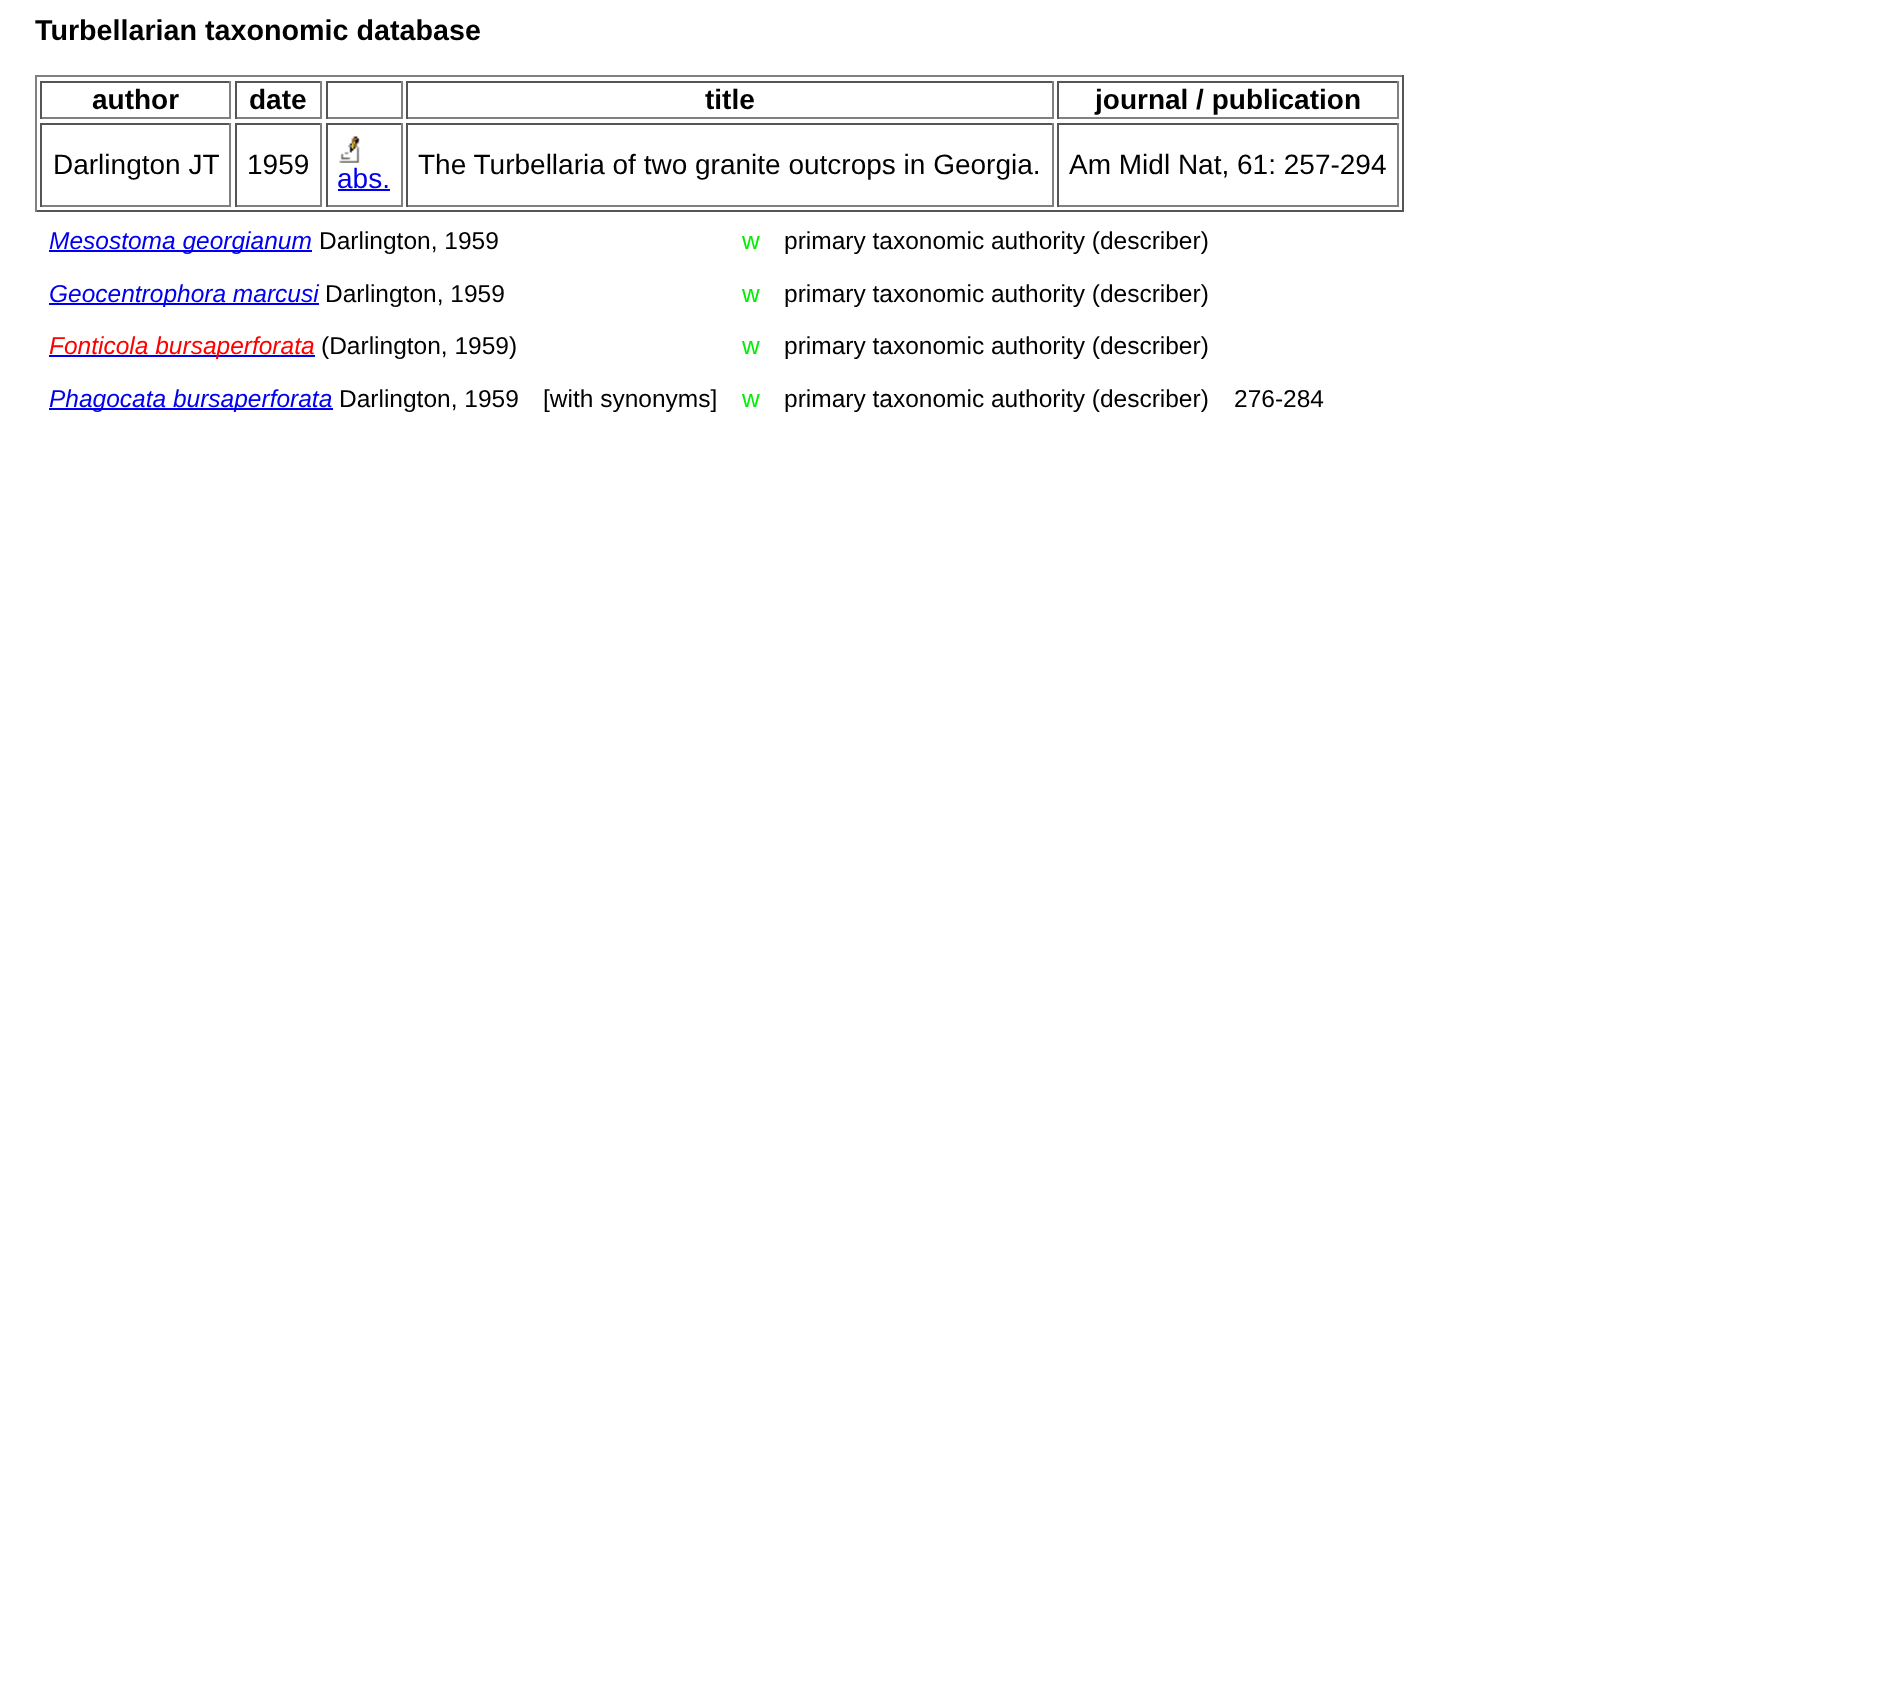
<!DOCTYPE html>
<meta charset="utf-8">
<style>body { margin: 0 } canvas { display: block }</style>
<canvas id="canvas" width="1900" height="1691"></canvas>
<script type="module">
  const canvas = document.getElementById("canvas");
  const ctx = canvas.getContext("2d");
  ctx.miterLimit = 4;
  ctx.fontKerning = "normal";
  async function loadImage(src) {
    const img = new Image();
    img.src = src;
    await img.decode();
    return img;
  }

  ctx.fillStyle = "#ffffff";
  ctx.fillRect(0, 0, 1900, 1691);
  ctx.font = "bold 28.7px Liberation Sans";
  ctx.fillStyle = "#000000";
  ctx.fillText("Turbellarian taxonomic database", 35, 40);
  ctx.fillStyle = "#808080";
  ctx.fillRect(35, 75, 1369, 2);
  ctx.fillStyle = "#555555";
  ctx.fillRect(1402, 75, 2, 137);
  ctx.fillRect(35, 210, 1369, 2);
  ctx.fillStyle = "#808080";
  ctx.fillRect(35, 75, 2, 137);
  ctx.fillStyle = "#555555";
  ctx.fillRect(40, 81, 191, 2);
  ctx.fillStyle = "#808080";
  ctx.fillRect(229, 81, 2, 38);
  ctx.fillRect(40, 117, 191, 2);
  ctx.fillStyle = "#555555";
  ctx.fillRect(40, 81, 2, 38);
  ctx.font = "bold 28px Liberation Sans";
  ctx.fillStyle = "#000000";
  ctx.fillText("author", 92, 109);
  ctx.fillStyle = "#555555";
  ctx.fillRect(235, 81, 87, 2);
  ctx.fillStyle = "#808080";
  ctx.fillRect(320, 81, 2, 38);
  ctx.fillRect(235, 117, 87, 2);
  ctx.fillStyle = "#555555";
  ctx.fillRect(235, 81, 2, 38);
  ctx.fillStyle = "#000000";
  ctx.fillText("date", 249, 109);
  ctx.fillStyle = "#555555";
  ctx.fillRect(326, 81, 77, 2);
  ctx.fillStyle = "#808080";
  ctx.fillRect(401, 81, 2, 38);
  ctx.fillRect(326, 117, 77, 2);
  ctx.fillStyle = "#555555";
  ctx.fillRect(326, 81, 2, 38);
  ctx.fillRect(406, 81, 648, 2);
  ctx.fillStyle = "#808080";
  ctx.fillRect(1052, 81, 2, 38);
  ctx.fillRect(406, 117, 648, 2);
  ctx.fillStyle = "#555555";
  ctx.fillRect(406, 81, 2, 38);
  ctx.fillStyle = "#000000";
  ctx.fillText("title", 705, 109);
  ctx.fillStyle = "#555555";
  ctx.fillRect(1057, 81, 341, 2);
  ctx.fillStyle = "#808080";
  ctx.fillRect(1397, 81, 2, 38);
  ctx.fillRect(1057, 117, 341, 2);
  ctx.fillStyle = "#555555";
  ctx.fillRect(1057, 81, 2, 38);
  ctx.fillStyle = "#000000";
  ctx.fillText("journal / publication", 1095, 109);
  ctx.fillStyle = "#555555";
  ctx.fillRect(40, 123, 191, 2);
  ctx.fillStyle = "#808080";
  ctx.fillRect(229, 123, 2, 84);
  ctx.fillRect(40, 205, 191, 2);
  ctx.fillStyle = "#555555";
  ctx.fillRect(40, 123, 2, 84);
  ctx.font = "28px Liberation Sans";
  ctx.fillStyle = "#000000";
  ctx.fillText("Darlington JT", 53, 174);
  ctx.fillStyle = "#555555";
  ctx.fillRect(235, 123, 87, 2);
  ctx.fillStyle = "#808080";
  ctx.fillRect(320, 123, 2, 84);
  ctx.fillRect(235, 205, 87, 2);
  ctx.fillStyle = "#555555";
  ctx.fillRect(235, 123, 2, 84);
  ctx.fillStyle = "#000000";
  ctx.fillText("1959", 247, 174);
  ctx.fillStyle = "#555555";
  ctx.fillRect(406, 123, 648, 2);
  ctx.fillStyle = "#808080";
  ctx.fillRect(1052, 123, 2, 84);
  ctx.fillRect(406, 205, 648, 2);
  ctx.fillStyle = "#555555";
  ctx.fillRect(406, 123, 2, 84);
  ctx.fillStyle = "#000000";
  ctx.fillText("The Turbellaria of two granite outcrops in Georgia.", 418, 174);
  ctx.fillStyle = "#555555";
  ctx.fillRect(1057, 123, 341, 2);
  ctx.fillStyle = "#808080";
  ctx.fillRect(1397, 123, 2, 84);
  ctx.fillRect(1057, 205, 341, 2);
  ctx.fillStyle = "#555555";
  ctx.fillRect(1057, 123, 2, 84);
  ctx.fillStyle = "#000000";
  ctx.fillText("Am Midl Nat, 61: 257-294", 1069, 174);
  ctx.fillStyle = "#555555";
  ctx.fillRect(326, 123, 77, 2);
  ctx.fillStyle = "#808080";
  ctx.fillRect(401, 123, 2, 84);
  ctx.fillRect(326, 205, 77, 2);
  ctx.fillStyle = "#555555";
  ctx.fillRect(326, 123, 2, 84);
  ctx.drawImage(await loadImage("img1.png"), 339, 136, 21, 27);
  ctx.fillStyle = "#0000ee";
  ctx.fillText("abs.", 337, 188);
  ctx.fillRect(338, 189, 52, 2);
  ctx.fillRect(49, 250, 263, 2);
  ctx.font = "italic 24.5px Liberation Sans";
  ctx.fillText("Mesostoma georgianum", 49, 249);
  ctx.font = "24.5px Liberation Sans";
  ctx.fillStyle = "#000000";
  ctx.fillText("Darlington, 1959", 319, 249);
  ctx.fillStyle = "#00ee00";
  ctx.fillText("w", 742, 249);
  ctx.fillStyle = "#000000";
  ctx.fillText("primary taxonomic authority (describer)", 784, 249);
  ctx.fillStyle = "#0000ee";
  ctx.fillRect(49, 303, 270, 2);
  ctx.font = "italic 24.5px Liberation Sans";
  ctx.fillText("Geocentrophora marcusi", 49, 302);
  ctx.font = "24.5px Liberation Sans";
  ctx.fillStyle = "#000000";
  ctx.fillText("Darlington, 1959", 325, 302);
  ctx.fillStyle = "#00ee00";
  ctx.fillText("w", 742, 302);
  ctx.fillStyle = "#000000";
  ctx.fillText("primary taxonomic authority (describer)", 784, 302);
  ctx.fillStyle = "#0000ee";
  ctx.fillRect(49, 355, 266, 2);
  ctx.font = "italic 24.5px Liberation Sans";
  ctx.fillStyle = "#ff0000";
  ctx.fillText("Fonticola bursaperforata", 49, 354);
  ctx.font = "24.5px Liberation Sans";
  ctx.fillStyle = "#000000";
  ctx.fillText("(Darlington, 1959)", 321, 354);
  ctx.fillStyle = "#00ee00";
  ctx.fillText("w", 742, 354);
  ctx.fillStyle = "#000000";
  ctx.fillText("primary taxonomic authority (describer)", 784, 354);
  ctx.fillStyle = "#0000ee";
  ctx.fillRect(49, 408, 284, 2);
  ctx.font = "italic 24.5px Liberation Sans";
  ctx.fillText("Phagocata bursaperforata", 49, 407);
  ctx.font = "24.5px Liberation Sans";
  ctx.fillStyle = "#000000";
  ctx.fillText("Darlington, 1959", 339, 407);
  ctx.fillText("[with synonyms]", 543, 407);
  ctx.fillStyle = "#00ee00";
  ctx.fillText("w", 742, 407);
  ctx.fillStyle = "#000000";
  ctx.fillText("primary taxonomic authority (describer)", 784, 407);
  ctx.fillText("276-284", 1234, 407);
</script>
